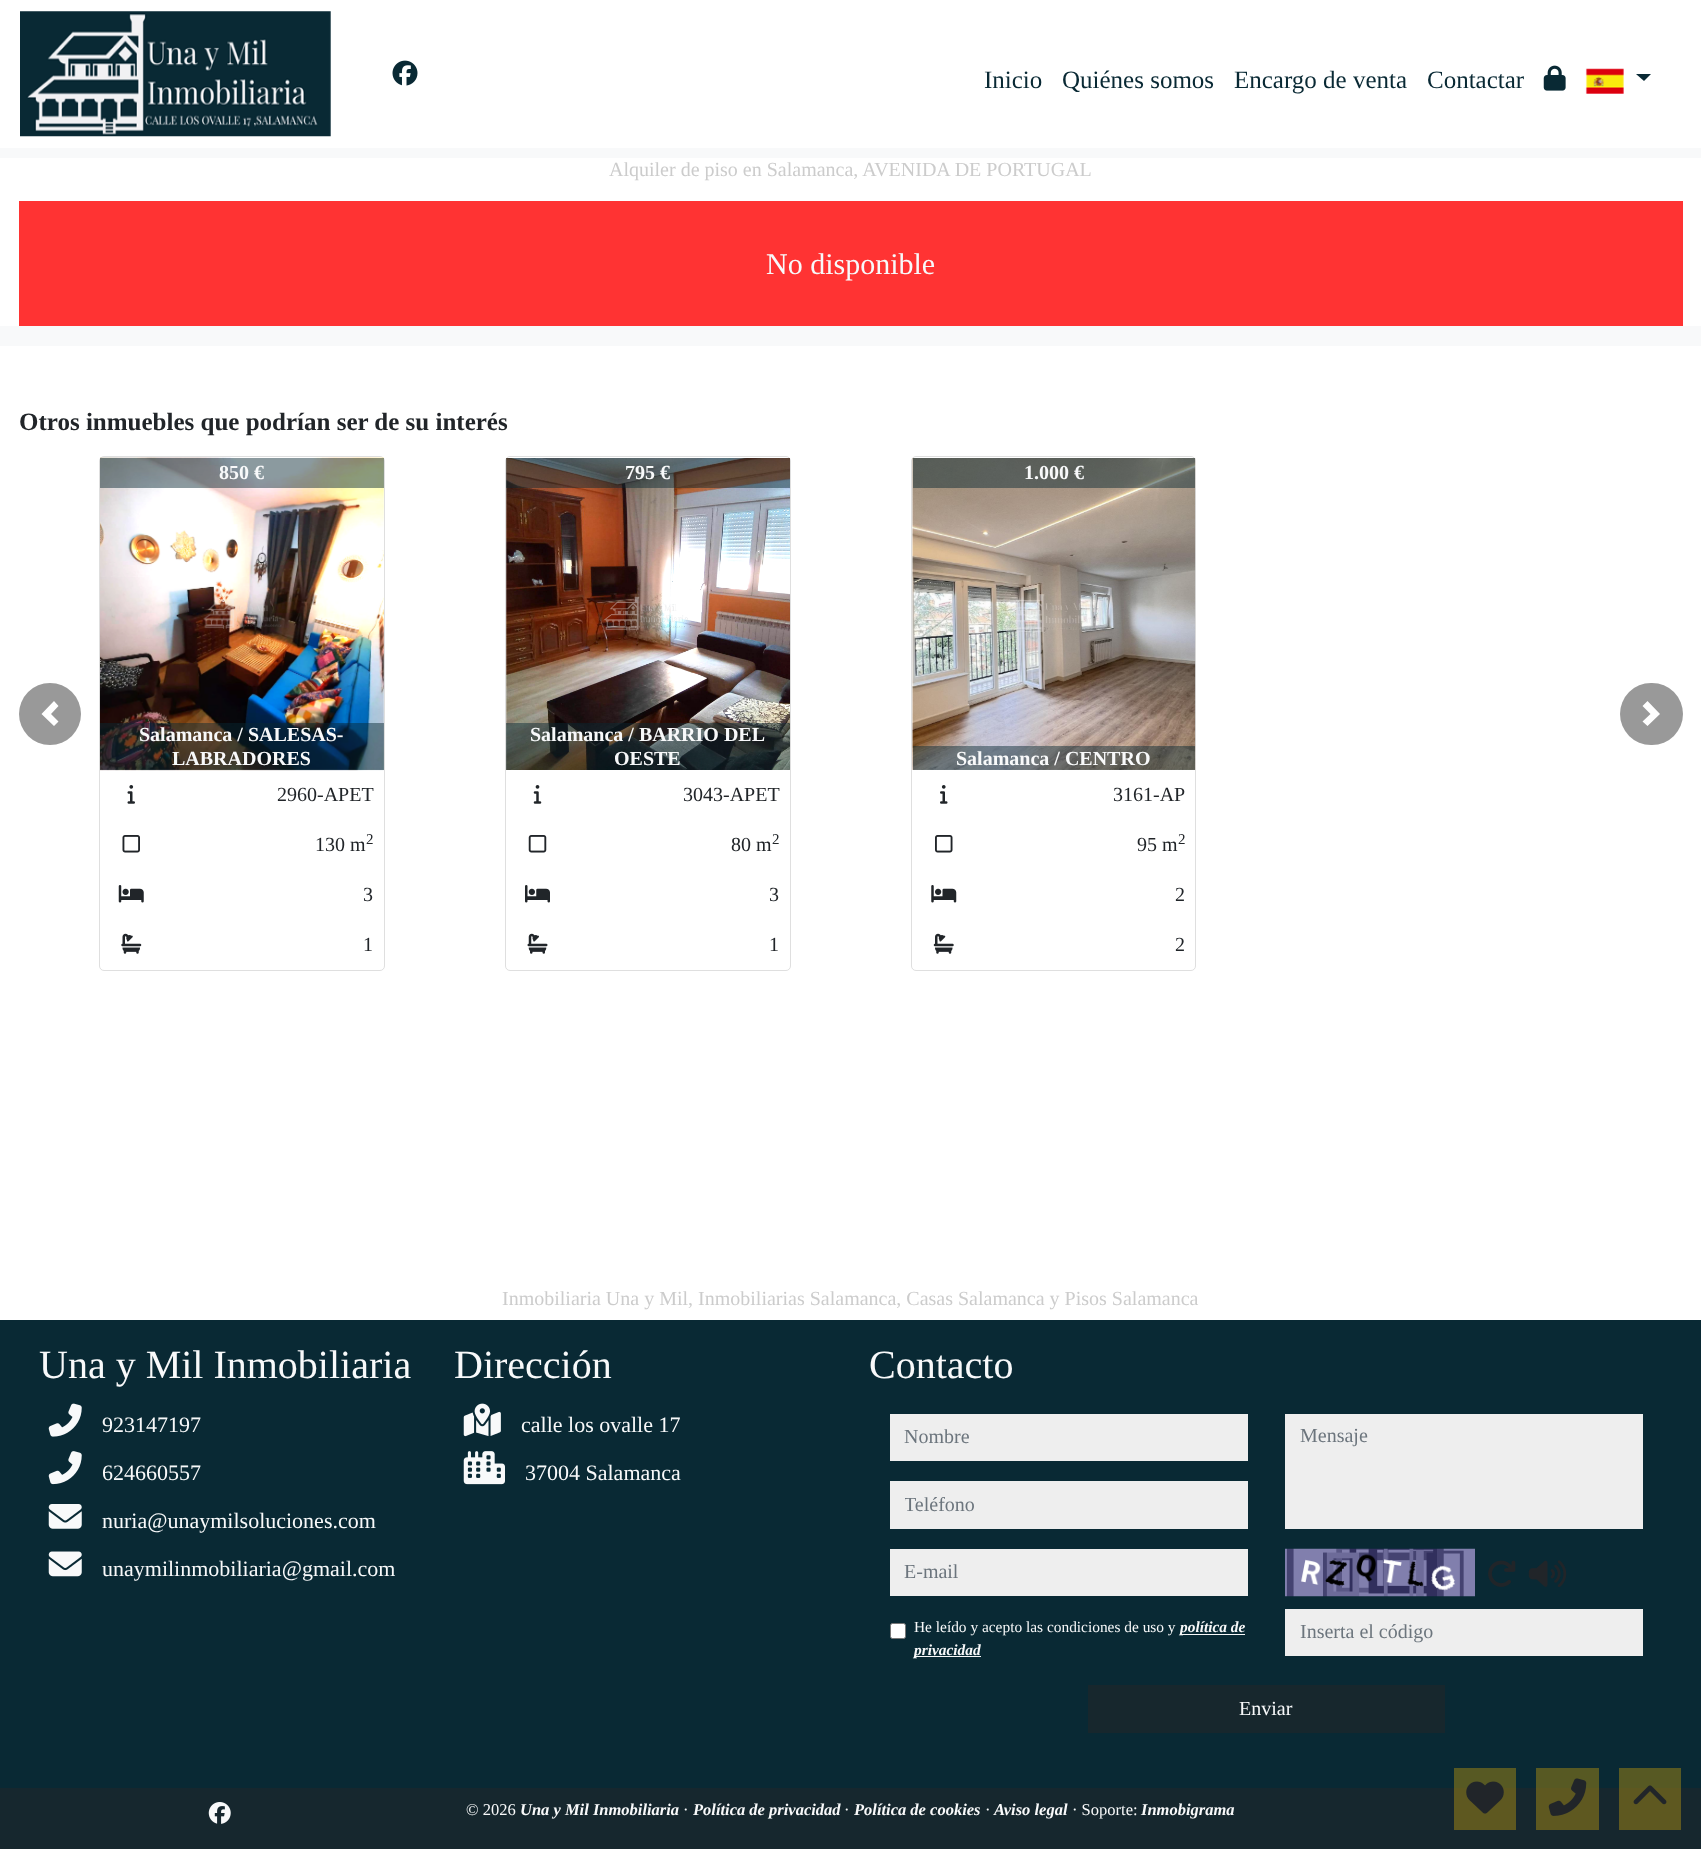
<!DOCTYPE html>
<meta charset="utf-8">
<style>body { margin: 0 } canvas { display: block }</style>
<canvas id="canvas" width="1701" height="1849"></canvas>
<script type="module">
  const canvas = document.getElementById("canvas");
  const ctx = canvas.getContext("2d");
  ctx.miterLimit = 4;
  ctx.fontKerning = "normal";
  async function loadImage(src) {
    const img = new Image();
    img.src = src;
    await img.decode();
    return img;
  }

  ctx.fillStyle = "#ffffff";
  ctx.fillRect(0, 0, 1701, 1849);
  ctx.drawImage(await loadImage("img1.png"), 20, 11, 311, 126);
  ctx.drawImage(await loadImage("img2.png"), 392, 60, 26, 26);
  ctx.font = "25px Liberation Serif";
  ctx.fillStyle = "#092934";
  ctx.fillText("Inicio", 984, 88);
  ctx.fillText("Quiénes somos", 1062, 88);
  ctx.fillText("Encargo de venta", 1234, 88);
  ctx.fillText("Contactar", 1427, 88);
  ctx.drawImage(await loadImage("img3.png"), 1543, 65, 23, 26);
  ctx.drawImage(await loadImage("img4.png"), 1585, 68, 39, 26);
  ctx.beginPath();
  ctx.moveTo(1636, 74);
  ctx.lineTo(1651, 74);
  ctx.lineTo(1644, 81);
  ctx.closePath();
  ctx.fill();
  ctx.fillStyle = "#f8f9fa";
  ctx.fillRect(0, 148, 1701, 198);
  ctx.fillStyle = "#ffffff";
  ctx.fillRect(0, 158, 1701, 168);
  ctx.font = "20px Liberation Serif";
  ctx.fillStyle = "#cccccc";
  ctx.fillText("Alquiler de piso en Salamanca, AVENIDA DE PORTUGAL", 609, 176);
  ctx.fillStyle = "#ff3333";
  ctx.fillRect(19, 201, 1664, 125);
  ctx.font = "30px Liberation Serif";
  ctx.fillStyle = "#f8f9fa";
  ctx.fillText("No disponible", 766, 274);
  ctx.font = "bold 25px Liberation Serif";
  ctx.fillStyle = "#212529";
  ctx.fillText("Otros inmuebles que podrían ser de su interés", 19, 430);
  ctx.fillStyle = "#999999";
  ctx.beginPath();
  ctx.arc(50, 714, 31, 0, Math.PI * 2);
  ctx.fill();
  ctx.fillStyle = "#ffffff";
  ctx.beginPath();
  ctx.moveTo(54, 701);
  ctx.lineTo(41.5, 714);
  ctx.lineTo(54, 726);
  ctx.lineTo(58.5, 721.5);
  ctx.lineTo(51, 714);
  ctx.lineTo(58.5, 706);
  ctx.closePath();
  ctx.fill();
  ctx.beginPath();
  ctx.roundRect(99.5, 456.5, 285, 514, 4.5);
  ctx.strokeStyle = "#dfdfdf";
  ctx.stroke();
  ctx.drawImage(await loadImage("img5.png"), 100, 457, 284, 314);
  ctx.fillStyle = "rgba(9, 41, 52, 0.47)";
  ctx.fillRect(100, 458, 284, 30);
  ctx.font = "bold 20px Liberation Serif";
  ctx.fillStyle = "#f8f9fa";
  ctx.fillText("850 €", 219, 479);
  ctx.fillStyle = "rgba(9, 41, 52, 0.47)";
  ctx.fillRect(100, 723, 284, 47);
  ctx.fillStyle = "#f8f9fa";
  ctx.fillText("Salamanca / SALESAS-", 139, 741);
  ctx.fillText("LABRADORES", 172, 765);
  ctx.drawImage(await loadImage("img6.png"), 127, 785, 8, 19);
  ctx.font = "20px Liberation Serif";
  ctx.fillStyle = "#212529";
  ctx.fillText("2960-APET", 277, 801);
  ctx.drawImage(await loadImage("img7.png"), 122, 835, 18, 18);
  ctx.fillText("130 m", 315, 851);
  ctx.font = "15px Liberation Serif";
  ctx.fillText("2", 366, 844);
  ctx.drawImage(await loadImage("img8.png"), 118, 885, 26, 18);
  ctx.font = "20px Liberation Serif";
  ctx.fillText("3", 363, 901);
  ctx.drawImage(await loadImage("img9.png"), 121, 933, 21, 21);
  ctx.fillText("1", 363, 951);
  ctx.beginPath();
  ctx.roundRect(505.5, 456.5, 285, 514, 4.5);
  ctx.stroke();
  ctx.drawImage(await loadImage("img10.png"), 506, 458, 284, 312);
  ctx.fillStyle = "rgba(9, 41, 52, 0.47)";
  ctx.fillRect(506, 458, 284, 30);
  ctx.font = "bold 20px Liberation Serif";
  ctx.fillStyle = "#f8f9fa";
  ctx.fillText("795 €", 625, 479);
  ctx.fillStyle = "rgba(9, 41, 52, 0.47)";
  ctx.fillRect(506, 723, 284, 47);
  ctx.fillStyle = "#f8f9fa";
  ctx.fillText("Salamanca / BARRIO DEL", 530, 741);
  ctx.fillText("OESTE", 614, 765);
  ctx.drawImage(await loadImage("img11.png"), 533, 785, 9, 19);
  ctx.font = "20px Liberation Serif";
  ctx.fillStyle = "#212529";
  ctx.fillText("3043-APET", 683, 801);
  ctx.drawImage(await loadImage("img12.png"), 528, 835, 19, 18);
  ctx.fillText("80 m", 731, 851);
  ctx.font = "15px Liberation Serif";
  ctx.fillText("2", 772, 844);
  ctx.drawImage(await loadImage("img13.png"), 525, 885, 25, 18);
  ctx.font = "20px Liberation Serif";
  ctx.fillText("3", 769, 901);
  ctx.drawImage(await loadImage("img14.png"), 527, 933, 21, 21);
  ctx.fillText("1", 769, 951);
  ctx.beginPath();
  ctx.roundRect(911.5, 456.5, 284, 514, 4.5);
  ctx.stroke();
  ctx.drawImage(await loadImage("img15.png"), 912, 458, 284, 312);
  ctx.fillStyle = "rgba(9, 41, 52, 0.47)";
  ctx.fillRect(913, 458, 282, 30);
  ctx.font = "bold 20px Liberation Serif";
  ctx.fillStyle = "#f8f9fa";
  ctx.fillText("1.000 €", 1024, 479);
  ctx.fillStyle = "rgba(9, 41, 52, 0.47)";
  ctx.fillRect(913, 746, 282, 24);
  ctx.fillStyle = "#f8f9fa";
  ctx.fillText("Salamanca / CENTRO", 956, 765);
  ctx.drawImage(await loadImage("img16.png"), 940, 785, 8, 19);
  ctx.font = "20px Liberation Serif";
  ctx.fillStyle = "#212529";
  ctx.fillText("3161-AP", 1113, 801);
  ctx.drawImage(await loadImage("img17.png"), 935, 835, 18, 18);
  ctx.fillText("95 m", 1137, 851);
  ctx.font = "15px Liberation Serif";
  ctx.fillText("2", 1178, 844);
  ctx.drawImage(await loadImage("img18.png"), 931, 885, 26, 18);
  ctx.font = "20px Liberation Serif";
  ctx.fillText("2", 1175, 901);
  ctx.drawImage(await loadImage("img19.png"), 933, 933, 21, 21);
  ctx.fillText("2", 1175, 951);
  ctx.fillStyle = "#999999";
  ctx.beginPath();
  ctx.roundRect(1620, 683, 63, 62, 31);
  ctx.fill();
  ctx.fillStyle = "#ffffff";
  ctx.beginPath();
  ctx.moveTo(1647.5, 701);
  ctx.lineTo(1642.5, 706);
  ctx.lineTo(1650.5, 714);
  ctx.lineTo(1642.5, 721.5);
  ctx.lineTo(1647.5, 726);
  ctx.lineTo(1660, 714);
  ctx.closePath();
  ctx.fill();
  ctx.fillStyle = "#cccccc";
  ctx.fillText("Inmobiliaria Una y Mil, Inmobiliarias Salamanca, Casas Salamanca y Pisos Salamanca", 502, 1305);
  ctx.fillStyle = "#092934";
  ctx.fillRect(0, 1320, 1701, 468);
  ctx.fillStyle = "#575923";
  ctx.fillRect(1454, 1768, 62, 20);
  ctx.fillRect(1536, 1768, 63, 20);
  ctx.fillRect(1619, 1768, 62, 20);
  ctx.font = "40px Liberation Serif";
  ctx.fillStyle = "#f8f9fa";
  ctx.fillText("Una y Mil Inmobiliaria", 39, 1378);
  ctx.drawImage(await loadImage("img20.png"), 48, 1403, 34, 34);
  ctx.font = "22px Liberation Serif";
  ctx.fillText("923147197", 102, 1432);
  ctx.drawImage(await loadImage("img21.png"), 48, 1451, 34, 34);
  ctx.fillText("624660557", 102, 1480);
  ctx.drawImage(await loadImage("img22.png"), 48, 1504, 34, 25);
  ctx.fillText("nuria@unaymilsoluciones.com", 102, 1528);
  ctx.drawImage(await loadImage("img23.png"), 48, 1551, 34, 26);
  ctx.fillText("unaymilinmobiliaria@gmail.com", 102, 1576);
  ctx.font = "40px Liberation Serif";
  ctx.fillText("Dirección", 454, 1378);
  ctx.drawImage(await loadImage("img24.png"), 463, 1403, 38, 34);
  ctx.font = "22px Liberation Serif";
  ctx.fillText("calle los ovalle 17", 521, 1432);
  ctx.drawImage(await loadImage("img25.png"), 463, 1451, 42, 34);
  ctx.fillText("37004 Salamanca", 525, 1480);
  ctx.font = "40px Liberation Serif";
  ctx.fillText("Contacto", 869, 1378);
  ctx.fillStyle = "#eeeeee";
  ctx.fillRect(890, 1414, 358, 47);
  ctx.font = "20px Liberation Serif";
  ctx.fillStyle = "#6c757d";
  ctx.fillText("Nombre", 904, 1443);
  ctx.fillStyle = "#eeeeee";
  ctx.fillRect(890, 1481, 358, 48);
  ctx.save();
  ctx.beginPath();
  ctx.rect(905, 1494, 328, 22);
  ctx.clip();
  ctx.fillStyle = "#6c757d";
  ctx.fillText("Teléfono", 904, 1511);
  ctx.restore();
  ctx.fillRect(890, 1549, 358, 47);
  ctx.fillStyle = "#6c757d";
  ctx.fillText("E-mail", 904, 1578);
  ctx.fillStyle = "#ffffff";
  ctx.beginPath();
  ctx.roundRect(890.5, 1623.5, 15, 15, 2);
  ctx.fill();
  ctx.strokeStyle = "#767676";
  ctx.stroke();
  ctx.font = "15.4px Liberation Serif";
  ctx.fillStyle = "#f8f9fa";
  ctx.fillText("He leído y acepto las condiciones de uso y", 914, 1632);
  ctx.fillRect(1180, 1634, 65, 1);
  ctx.font = "italic bold 15.4px Liberation Serif";
  ctx.fillText("política de", 1180, 1632);
  ctx.fillRect(915, 1656, 66, 1);
  ctx.fillText("privacidad", 914, 1655);
  ctx.fillStyle = "#eeeeee";
  ctx.fillRect(1285, 1414, 358, 115);
  ctx.font = "20px Liberation Serif";
  ctx.fillStyle = "#6c757d";
  ctx.fillText("Mensaje", 1300, 1442);
  ctx.drawImage(await loadImage("img26.png"), 1285, 1548, 190, 49);
  ctx.drawImage(await loadImage("img27.png"), 1488, 1560, 28, 27);
  ctx.drawImage(await loadImage("img28.png"), 1528, 1560, 39, 27);
  ctx.fillStyle = "#eeeeee";
  ctx.fillRect(1285, 1609, 358, 47);
  ctx.fillStyle = "#6c757d";
  ctx.fillText("Inserta el código", 1300, 1638);
  ctx.fillStyle = "#17272d";
  ctx.fillRect(1088, 1685, 357, 48);
  ctx.fillStyle = "#f8f9fa";
  ctx.fillText("Enviar", 1239, 1715);
  ctx.fillStyle = "#16272e";
  ctx.fillRect(0, 1788, 1701, 61);
  ctx.fillStyle = "#5e5820";
  ctx.fillRect(1454, 1788, 62, 42);
  ctx.fillRect(1536, 1788, 63, 42);
  ctx.fillRect(1619, 1788, 62, 42);
  ctx.drawImage(await loadImage("img29.png"), 208, 1802, 23, 22);
  ctx.font = "16.5px Liberation Serif";
  ctx.fillStyle = "#f8f9fa";
  ctx.fillText("© 2026", 466, 1815);
  ctx.font = "italic bold 16.5px Liberation Serif";
  ctx.fillText("Una y Mil Inmobiliaria", 520, 1815);
  ctx.font = "16.5px Liberation Serif";
  ctx.fillText("·", 683, 1815);
  ctx.font = "italic bold 16.5px Liberation Serif";
  ctx.fillText("Política de privacidad", 693, 1815);
  ctx.font = "16.5px Liberation Serif";
  ctx.fillText("·", 844, 1815);
  ctx.font = "italic bold 16.5px Liberation Serif";
  ctx.fillText("Política de cookies", 854, 1815);
  ctx.font = "16.5px Liberation Serif";
  ctx.fillText("·", 985, 1815);
  ctx.font = "italic bold 16.5px Liberation Serif";
  ctx.fillText("Aviso legal", 994, 1815);
  ctx.font = "16.5px Liberation Serif";
  ctx.fillText("· Soporte:", 1072, 1815);
  ctx.font = "italic bold 16.5px Liberation Serif";
  ctx.fillText("Inmobigrama", 1141, 1815);
  ctx.drawImage(await loadImage("img30.png"), 1466, 1781, 38, 33);
  ctx.drawImage(await loadImage("img31.png"), 1548, 1778, 39, 38);
  ctx.drawImage(await loadImage("img32.png"), 1633, 1785, 34, 20);
</script>
